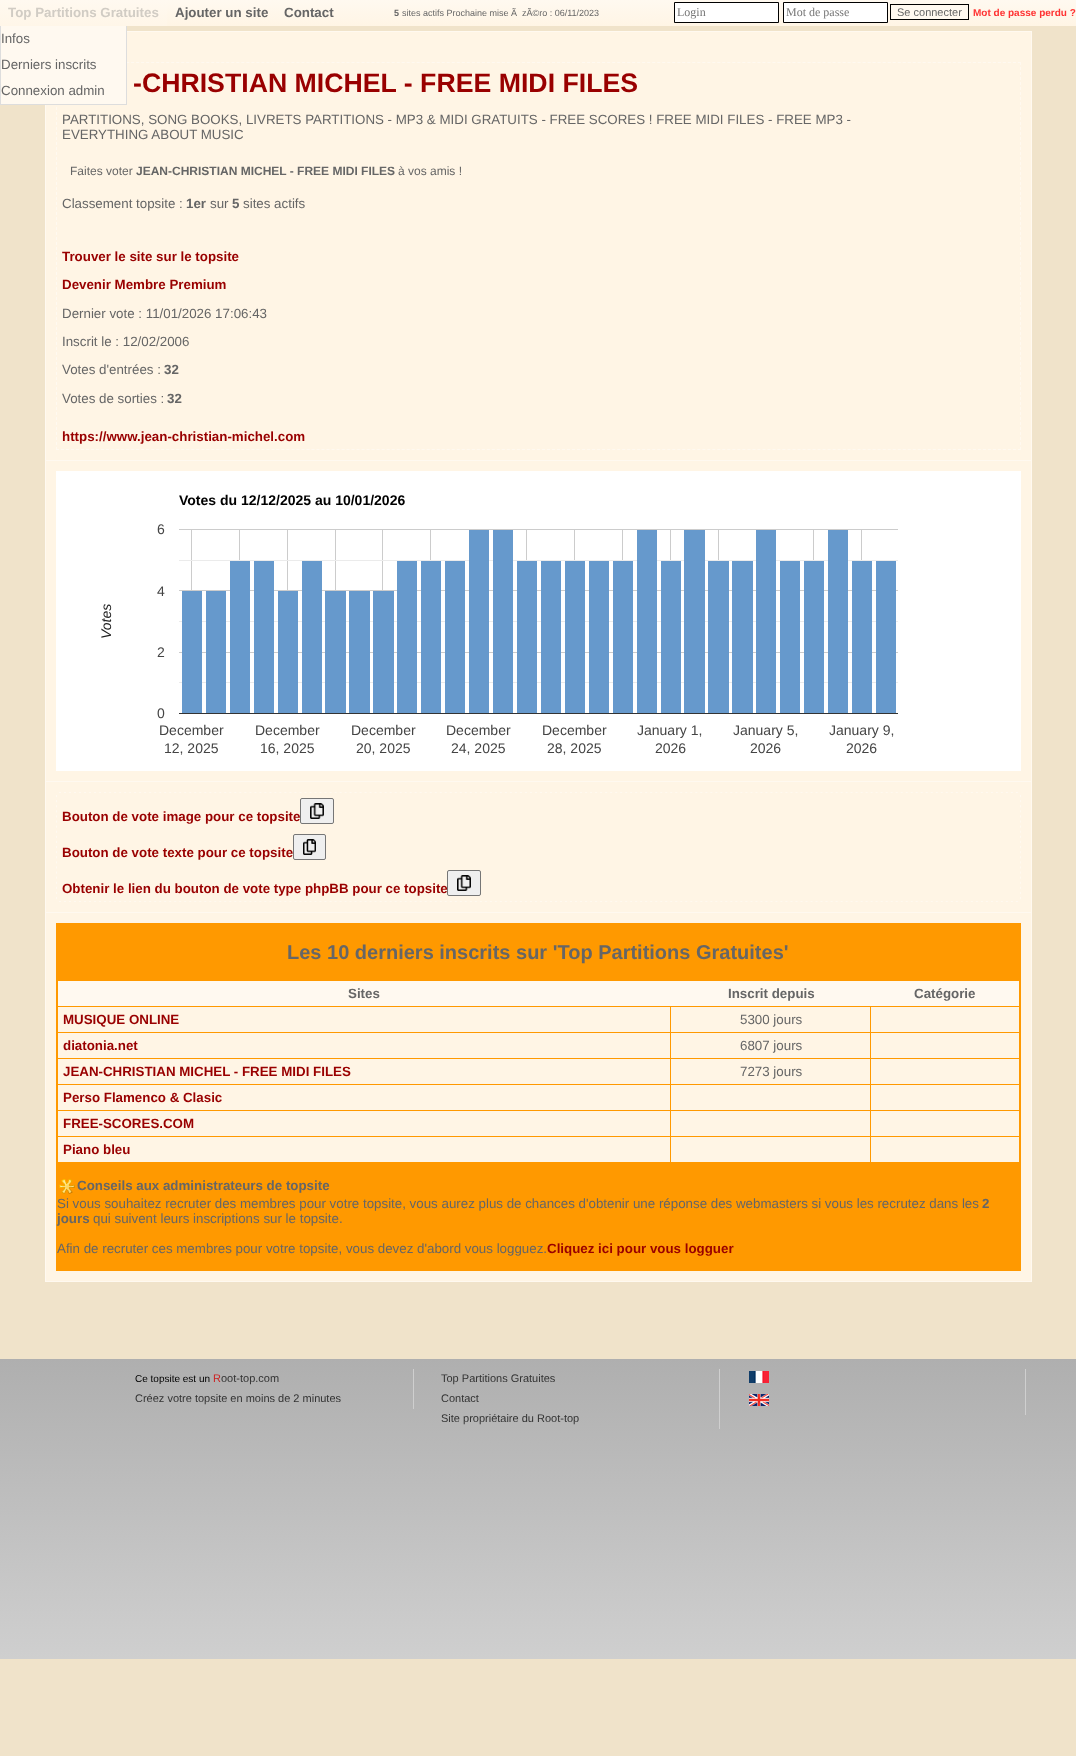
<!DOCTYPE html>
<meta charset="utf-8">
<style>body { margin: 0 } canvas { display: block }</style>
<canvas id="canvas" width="1076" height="1756"></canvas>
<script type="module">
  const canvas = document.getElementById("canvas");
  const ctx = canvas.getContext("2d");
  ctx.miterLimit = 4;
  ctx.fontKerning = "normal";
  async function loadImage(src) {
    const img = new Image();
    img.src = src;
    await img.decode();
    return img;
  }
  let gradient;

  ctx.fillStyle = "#f0e3ca";
  ctx.fillRect(0, 0, 1076, 1756);
  gradient = ctx.createLinearGradient(0, 0, 0, 26);
  gradient.addColorStop(0, "#fff9f0");
  gradient.addColorStop(1, "#fff5e5");
  ctx.fillStyle = gradient;
  ctx.fillRect(649, 0, 23, 26);
  gradient = ctx.createLinearGradient(0, 0, 0, 26);
  gradient.addColorStop(0, "#fff9f0");
  gradient.addColorStop(1, "#fff6e8");
  ctx.fillStyle = gradient;
  ctx.fillRect(0, 0, 167, 26);
  ctx.font = "bold 13.33px Liberation Sans";
  ctx.fillStyle = "#d1ccc4";
  ctx.fillText("Top Partitions Gratuites", 8, 17);
  ctx.fillStyle = "#fff9f0";
  ctx.fillRect(45, 31, 987, 1251);
  ctx.fillStyle = "#fff5e5";
  ctx.fillRect(46, 32, 985, 428);
  ctx.beginPath();
  ctx.moveTo(56, 62.5);
  ctx.lineTo(1021, 62.5);
  ctx.strokeStyle = "#fff9f0";
  ctx.setLineDash([3, 2.01]);
  ctx.stroke();
  ctx.fillStyle = "#dddddd";
  ctx.fillRect(126, 26, 1, 79);
  ctx.beginPath();
  ctx.moveTo(1020.5, 62);
  ctx.lineTo(1020.5, 450);
  ctx.setLineDash([3, 2]);
  ctx.stroke();
  ctx.beginPath();
  ctx.moveTo(56, 449.5);
  ctx.lineTo(1021, 449.5);
  ctx.setLineDash([3, 2.01]);
  ctx.stroke();
  ctx.beginPath();
  ctx.moveTo(56.5, 62);
  ctx.lineTo(56.5, 450);
  ctx.setLineDash([3, 2]);
  ctx.stroke();
  ctx.fillRect(0, 104, 127, 1);
  ctx.fillRect(0, 26, 1, 79);
  ctx.fillStyle = "#fff9f0";
  ctx.fillRect(1, 26, 125, 78);
  ctx.font = "13.33px Liberation Sans";
  ctx.fillStyle = "#666666";
  ctx.fillText("Infos", 1, 43);
  ctx.fillText("Derniers inscrits", 1, 69);
  ctx.fillText("Connexion admin", 1, 95);
  gradient = ctx.createLinearGradient(167, 0, 167, 26);
  gradient.addColorStop(0, "#fff9f0");
  gradient.addColorStop(1, "#fff5e5");
  ctx.fillStyle = gradient;
  ctx.fillRect(167, 0, 109, 26);
  ctx.font = "bold 13.33px Liberation Sans";
  ctx.fillStyle = "#666666";
  ctx.fillText("Ajouter un site", 175, 17);
  gradient = ctx.createLinearGradient(276, 0, 276, 26);
  gradient.addColorStop(0, "#fff9f0");
  gradient.addColorStop(1, "#fff5e5");
  ctx.fillStyle = gradient;
  ctx.fillRect(276, 0, 66, 26);
  ctx.fillStyle = "#666666";
  ctx.fillText("Contact", 284, 17);
  gradient = ctx.createLinearGradient(342, 0, 342, 26);
  gradient.addColorStop(0, "#fff9f0");
  gradient.addColorStop(1, "#fff5e5");
  ctx.fillStyle = gradient;
  ctx.fillRect(342, 0, 50, 26);
  gradient = ctx.createLinearGradient(392, 0, 392, 26);
  gradient.addColorStop(0, "#fff9f0");
  gradient.addColorStop(1, "#fff5e5");
  ctx.fillStyle = gradient;
  ctx.fillRect(392, 0, 207, 26);
  ctx.font = "bold 9px Liberation Sans";
  ctx.fillStyle = "#666666";
  ctx.fillText("5", 394, 16);
  ctx.font = "9px Liberation Sans";
  ctx.fillText("sites actifs Prochaine mise Ã  zÃ©ro : 06/11/2023", 402, 16);
  gradient = ctx.createLinearGradient(599, 0, 599, 26);
  gradient.addColorStop(0, "#fff9f0");
  gradient.addColorStop(1, "#fff5e5");
  ctx.fillStyle = gradient;
  ctx.fillRect(599, 0, 50, 26);
  gradient = ctx.createLinearGradient(672, 0, 672, 26);
  gradient.addColorStop(0, "#fff9f0");
  gradient.addColorStop(1, "#fff5e5");
  ctx.fillStyle = gradient;
  ctx.fillRect(672, 0, 404, 26);
  ctx.fillStyle = "#ffffff";
  ctx.beginPath();
  ctx.rect(674.5, 2.5, 104, 20);
  ctx.fill();
  ctx.strokeStyle = "#000000";
  ctx.setLineDash([]);
  ctx.stroke();
  ctx.font = "12px Liberation Serif";
  ctx.fillStyle = "#757575";
  ctx.fillText("Login", 677, 16);
  ctx.fillStyle = "#ffffff";
  ctx.beginPath();
  ctx.rect(783.5, 2.5, 104, 20);
  ctx.fill();
  ctx.stroke();
  ctx.fillStyle = "#757575";
  ctx.fillText("Mot de passe", 786, 16);
  ctx.fillStyle = "#fff9f0";
  ctx.fillRect(891, 6, 77, 13);
  ctx.strokeRect(890.5, 4.5, 78, 15);
  ctx.font = "11px Liberation Sans";
  ctx.fillStyle = "#666666";
  ctx.fillText("Se connecter", 897, 16);
  ctx.font = "bold 10px Liberation Sans";
  ctx.fillStyle = "#ff3333";
  ctx.fillText("Mot de passe perdu ?", 973, 16);
  ctx.font = "bold 26.7px Liberation Sans";
  ctx.fillStyle = "#990000";
  ctx.fillText("-CHRISTIAN MICHEL - FREE MIDI FILES", 133, 92);
  ctx.font = "13.33px Liberation Sans";
  ctx.fillStyle = "#666666";
  ctx.fillText("PARTITIONS, SONG BOOKS, LIVRETS PARTITIONS - MP3 & MIDI GRATUITS - FREE SCORES ! FREE MIDI FILES - FREE MP3 -", 62, 124);
  ctx.fillText("EVERYTHING ABOUT MUSIC", 62, 139);
  ctx.font = "12px Liberation Sans";
  ctx.fillText("Faites voter", 70, 175);
  ctx.font = "bold 12px Liberation Sans";
  ctx.fillText("JEAN-CHRISTIAN MICHEL - FREE MIDI FILES", 136, 175);
  ctx.font = "12px Liberation Sans";
  ctx.fillText("à vos amis !", 398, 175);
  ctx.font = "13.33px Liberation Sans";
  ctx.fillText("Classement topsite :", 62, 208);
  ctx.font = "bold 13.33px Liberation Sans";
  ctx.fillText("1er", 186, 208);
  ctx.font = "13.33px Liberation Sans";
  ctx.fillText("sur", 210, 208);
  ctx.font = "bold 13.33px Liberation Sans";
  ctx.fillText("5", 232, 208);
  ctx.font = "13.33px Liberation Sans";
  ctx.fillText("sites actifs", 243, 208);
  ctx.font = "bold 13.33px Liberation Sans";
  ctx.fillStyle = "#990000";
  ctx.fillText("Trouver le site sur le topsite", 62, 261);
  ctx.fillText("Devenir Membre Premium", 62, 289);
  ctx.font = "13.33px Liberation Sans";
  ctx.fillStyle = "#666666";
  ctx.fillText("Dernier vote : 11/01/2026 17:06:43", 62, 318);
  ctx.fillText("Inscrit le : 12/02/2006", 62, 346);
  ctx.fillText("Votes d'entrées :", 62, 374);
  ctx.font = "bold 13.33px Liberation Sans";
  ctx.fillText("32", 164, 374);
  ctx.font = "13.33px Liberation Sans";
  ctx.fillText("Votes de sorties :", 62, 403);
  ctx.font = "bold 13.33px Liberation Sans";
  ctx.fillText("32", 167, 403);
  ctx.fillStyle = "#990000";
  ctx.fillText("https://www.jean-christian-michel.com", 62, 441);
  ctx.fillStyle = "#fff5e5";
  ctx.fillRect(46, 461, 985, 320);
  ctx.drawImage(await loadImage("img1.png"), 56, 471, 965, 300);
  ctx.font = "bold 14px Liberation Sans";
  ctx.fillStyle = "#000000";
  ctx.fillText("Votes du 12/12/2025 au 10/01/2026", 179, 505);
  ctx.font = "14px Liberation Sans";
  ctx.fillStyle = "#444444";
  ctx.fillText("6", 157, 534);
  ctx.fillText("4", 157, 596);
  ctx.font = "italic 14px Liberation Sans";
  ctx.fillStyle = "#222222";
  ctx.save();
  ctx.translate(111, 639);
  ctx.rotate(-90 * Math.PI / 180);
  ctx.fillText("Votes", 0, 0);
  ctx.restore();
  ctx.font = "14px Liberation Sans";
  ctx.fillStyle = "#444444";
  ctx.fillText("2", 157, 657);
  ctx.fillText("0", 157, 718);
  ctx.fillText("December", 159, 735);
  ctx.fillText("December", 255, 735);
  ctx.fillText("December", 351, 735);
  ctx.fillText("December", 446, 735);
  ctx.fillText("December", 542, 735);
  ctx.fillText("January 1,", 637, 735);
  ctx.fillText("January 5,", 733, 735);
  ctx.fillText("January 9,", 829, 735);
  ctx.fillText("12, 2025", 164, 753);
  ctx.fillText("16, 2025", 260, 753);
  ctx.fillText("20, 2025", 356, 753);
  ctx.fillText("24, 2025", 451, 753);
  ctx.fillText("28, 2025", 547, 753);
  ctx.fillText("2026", 655, 753);
  ctx.fillText("2026", 750, 753);
  ctx.fillText("2026", 846, 753);
  ctx.fillStyle = "#fff5e5";
  ctx.fillRect(46, 782, 985, 130);
  ctx.fillStyle = "#fff9f0";
  ctx.fillRect(56, 792, 965, 110);
  ctx.beginPath();
  ctx.moveTo(56, 792.5);
  ctx.lineTo(1021, 792.5);
  ctx.strokeStyle = "#fff5e5";
  ctx.setLineDash([3, 2.01]);
  ctx.stroke();
  ctx.beginPath();
  ctx.moveTo(1020.5, 792);
  ctx.lineTo(1020.5, 902);
  ctx.setLineDash([3, 2.1]);
  ctx.stroke();
  ctx.beginPath();
  ctx.moveTo(56, 901.5);
  ctx.lineTo(1021, 901.5);
  ctx.setLineDash([3, 2.01]);
  ctx.stroke();
  ctx.beginPath();
  ctx.moveTo(56.5, 792);
  ctx.lineTo(56.5, 902);
  ctx.setLineDash([3, 2.1]);
  ctx.stroke();
  ctx.fillStyle = "#fff5e5";
  ctx.fillRect(57, 793, 963, 108);
  ctx.font = "bold 13.33px Liberation Sans";
  ctx.fillStyle = "#990000";
  ctx.fillText("Bouton de vote image pour ce topsite", 62, 821);
  ctx.fillStyle = "#efefef";
  ctx.beginPath();
  ctx.roundRect(300.5, 798.5, 33, 25, 1.5);
  ctx.fill();
  ctx.strokeStyle = "#767676";
  ctx.setLineDash([]);
  ctx.stroke();
  ctx.drawImage(await loadImage("img2.png"), 310, 803, 14, 16);
  ctx.fillStyle = "#990000";
  ctx.fillText("Bouton de vote texte pour ce topsite", 62, 857);
  ctx.fillStyle = "#efefef";
  ctx.beginPath();
  ctx.roundRect(293.5, 834.5, 32, 25, 1.5);
  ctx.fill();
  ctx.stroke();
  ctx.drawImage(await loadImage("img3.png"), 303, 839, 13, 16);
  ctx.fillStyle = "#990000";
  ctx.fillText("Obtenir le lien du bouton de vote type phpBB pour ce topsite", 62, 893);
  ctx.fillStyle = "#efefef";
  ctx.beginPath();
  ctx.roundRect(447.5, 870.5, 33, 25, 1.5);
  ctx.fill();
  ctx.stroke();
  ctx.drawImage(await loadImage("img4.png"), 457, 875, 14, 16);
  ctx.fillStyle = "#fff5e5";
  ctx.fillRect(46, 913, 985, 368);
  ctx.fillStyle = "#ff9900";
  ctx.fillRect(56, 923, 965, 348);
  ctx.font = "bold 20px Liberation Sans";
  ctx.fillStyle = "#666666";
  ctx.fillText("Les 10 derniers inscrits sur 'Top Partitions Gratuites'", 287, 959);
  ctx.fillStyle = "#fff9f0";
  ctx.fillRect(58, 981, 961, 25);
  ctx.font = "bold 13.33px Liberation Sans";
  ctx.fillStyle = "#666666";
  ctx.fillText("Sites", 348, 998);
  ctx.fillText("Inscrit depuis", 728, 998);
  ctx.fillText("Catégorie", 914, 998);
  ctx.fillStyle = "#fff5e5";
  ctx.fillRect(58, 1007, 612, 25);
  ctx.fillStyle = "#990000";
  ctx.fillText("MUSIQUE ONLINE", 63, 1024);
  ctx.fillStyle = "#fff5e5";
  ctx.fillRect(671, 1007, 199, 25);
  ctx.font = "13.33px Liberation Sans";
  ctx.fillStyle = "#666666";
  ctx.fillText("5300 jours", 740, 1024);
  ctx.fillStyle = "#fff5e5";
  ctx.fillRect(871, 1007, 148, 25);
  ctx.fillRect(58, 1033, 612, 25);
  ctx.font = "bold 13.33px Liberation Sans";
  ctx.fillStyle = "#990000";
  ctx.fillText("diatonia.net", 63, 1050);
  ctx.fillStyle = "#fff5e5";
  ctx.fillRect(671, 1033, 199, 25);
  ctx.font = "13.33px Liberation Sans";
  ctx.fillStyle = "#666666";
  ctx.fillText("6807 jours", 740, 1050);
  ctx.fillStyle = "#fff5e5";
  ctx.fillRect(871, 1033, 148, 25);
  ctx.fillRect(58, 1059, 612, 25);
  ctx.font = "bold 13.33px Liberation Sans";
  ctx.fillStyle = "#990000";
  ctx.fillText("JEAN-CHRISTIAN MICHEL - FREE MIDI FILES", 63, 1076);
  ctx.fillStyle = "#fff5e5";
  ctx.fillRect(671, 1059, 199, 25);
  ctx.font = "13.33px Liberation Sans";
  ctx.fillStyle = "#666666";
  ctx.fillText("7273 jours", 740, 1076);
  ctx.fillStyle = "#fff5e5";
  ctx.fillRect(871, 1059, 148, 25);
  ctx.fillRect(58, 1085, 612, 25);
  ctx.font = "bold 13.33px Liberation Sans";
  ctx.fillStyle = "#990000";
  ctx.fillText("Perso Flamenco & Clasic", 63, 1102);
  ctx.fillStyle = "#fff5e5";
  ctx.fillRect(671, 1085, 199, 25);
  ctx.fillRect(871, 1085, 148, 25);
  ctx.fillRect(58, 1111, 612, 25);
  ctx.fillStyle = "#990000";
  ctx.fillText("FREE-SCORES.COM", 63, 1128);
  ctx.fillStyle = "#fff5e5";
  ctx.fillRect(671, 1111, 199, 25);
  ctx.fillRect(871, 1111, 148, 25);
  ctx.fillRect(58, 1137, 612, 25);
  ctx.fillStyle = "#990000";
  ctx.fillText("Piano bleu", 63, 1154);
  ctx.fillStyle = "#fff5e5";
  ctx.fillRect(671, 1137, 199, 25);
  ctx.fillRect(871, 1137, 148, 25);
  ctx.drawImage(await loadImage("img5.png"), 59, 1179, 16, 15);
  ctx.fillStyle = "#666666";
  ctx.fillText("Conseils aux administrateurs de topsite", 77, 1190);
  ctx.font = "13.33px Liberation Sans";
  ctx.fillText("Si vous souhaitez recruter des membres pour votre topsite, vous aurez plus de chances d'obtenir une réponse des webmasters si vous les recrutez dans les", 57, 1208);
  ctx.font = "bold 13.33px Liberation Sans";
  ctx.fillText("2", 982, 1208);
  ctx.fillText("jours", 57, 1223);
  ctx.font = "13.33px Liberation Sans";
  ctx.fillText("qui suivent leurs inscriptions sur le topsite.", 93, 1223);
  ctx.fillText("Afin de recruter ces membres pour votre topsite, vous devez d'abord vous logguez.", 57, 1253);
  ctx.font = "bold 13.33px Liberation Sans";
  ctx.fillStyle = "#990000";
  ctx.fillText("Cliquez ici pour vous logguer", 547, 1253);
  gradient = ctx.createLinearGradient(0, 1359, 0, 1659);
  gradient.addColorStop(0, "#afafaf");
  gradient.addColorStop(1, "#cfcfcf");
  ctx.fillStyle = gradient;
  ctx.fillRect(0, 1359, 1076, 300);
  ctx.fillStyle = "#cfcfcf";
  ctx.fillRect(413, 1369, 1, 40);
  ctx.font = "10px Liberation Sans";
  ctx.fillStyle = "#000000";
  ctx.fillText("Ce topsite est un", 135, 1382);
  ctx.font = "11px Liberation Sans";
  ctx.fillStyle = "#cc2222";
  ctx.fillText("R", 213, 1382);
  ctx.fillStyle = "#333333";
  ctx.fillText("oot-top.com", 221, 1382);
  ctx.fillText("Créez votre topsite en moins de 2 minutes", 135, 1402);
  ctx.fillStyle = "#cfcfcf";
  ctx.fillRect(719, 1369, 1, 60);
  ctx.fillStyle = "#333333";
  ctx.fillText("Top Partitions Gratuites", 441, 1382);
  ctx.fillText("Contact", 441, 1402);
  ctx.fillText("Site propriétaire du Root-top", 441, 1422);
  ctx.fillStyle = "#cfcfcf";
  ctx.fillRect(1025, 1369, 1, 46);
  ctx.drawImage(await loadImage("img6.png"), 749, 1371, 20, 12);
  ctx.drawImage(await loadImage("img7.png"), 749, 1394, 20, 12);
</script>
